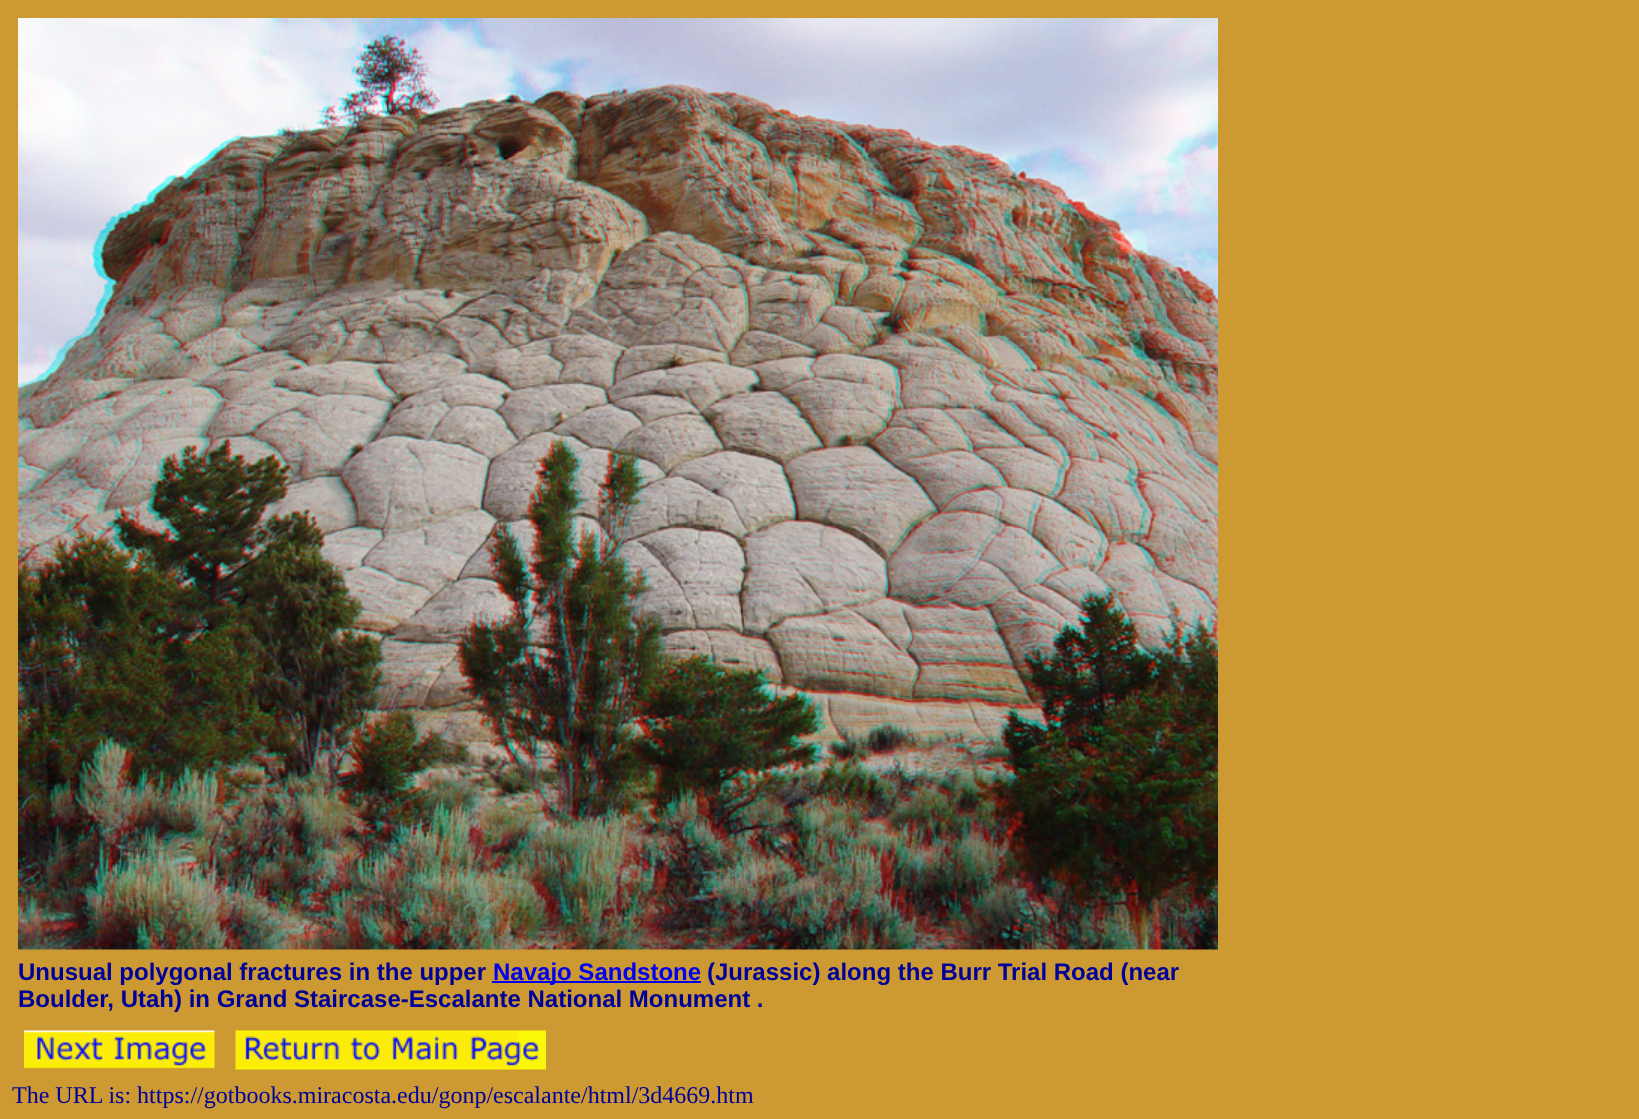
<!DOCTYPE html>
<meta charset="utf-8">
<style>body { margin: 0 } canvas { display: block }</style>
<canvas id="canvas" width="1639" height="1119"></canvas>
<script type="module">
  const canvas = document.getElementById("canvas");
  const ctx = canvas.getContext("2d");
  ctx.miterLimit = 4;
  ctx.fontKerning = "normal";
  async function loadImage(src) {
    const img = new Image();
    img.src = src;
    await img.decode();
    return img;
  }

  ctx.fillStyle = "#cc9933";
  ctx.fillRect(0, 0, 1639, 1119);
  ctx.drawImage(await loadImage("img1.png"), 18, 18, 1200, 932);
  ctx.font = "bold 24px Liberation Sans";
  ctx.fillStyle = "#000099";
  ctx.fillText("Unusual polygonal fractures in the upper", 18, 980);
  ctx.fillStyle = "#0000ee";
  ctx.fillRect(492, 981, 209, 2);
  ctx.fillText("Navajo Sandstone", 493, 980);
  ctx.fillStyle = "#000099";
  ctx.fillText("(Jurassic) along the Burr Trial Road (near", 707, 980);
  ctx.fillText("Boulder, Utah) in Grand Staircase-Escalante National Monument .", 18, 1007);
  ctx.drawImage(await loadImage("img2.png"), 24, 1030, 191, 39);
  ctx.drawImage(await loadImage("img3.png"), 235, 1030, 311, 40);
  ctx.font = "24px Liberation Serif";
  ctx.fillText("The URL is: https://gotbooks.miracosta.edu/gonp/escalante/html/3d4669.htm", 12, 1103);
</script>
